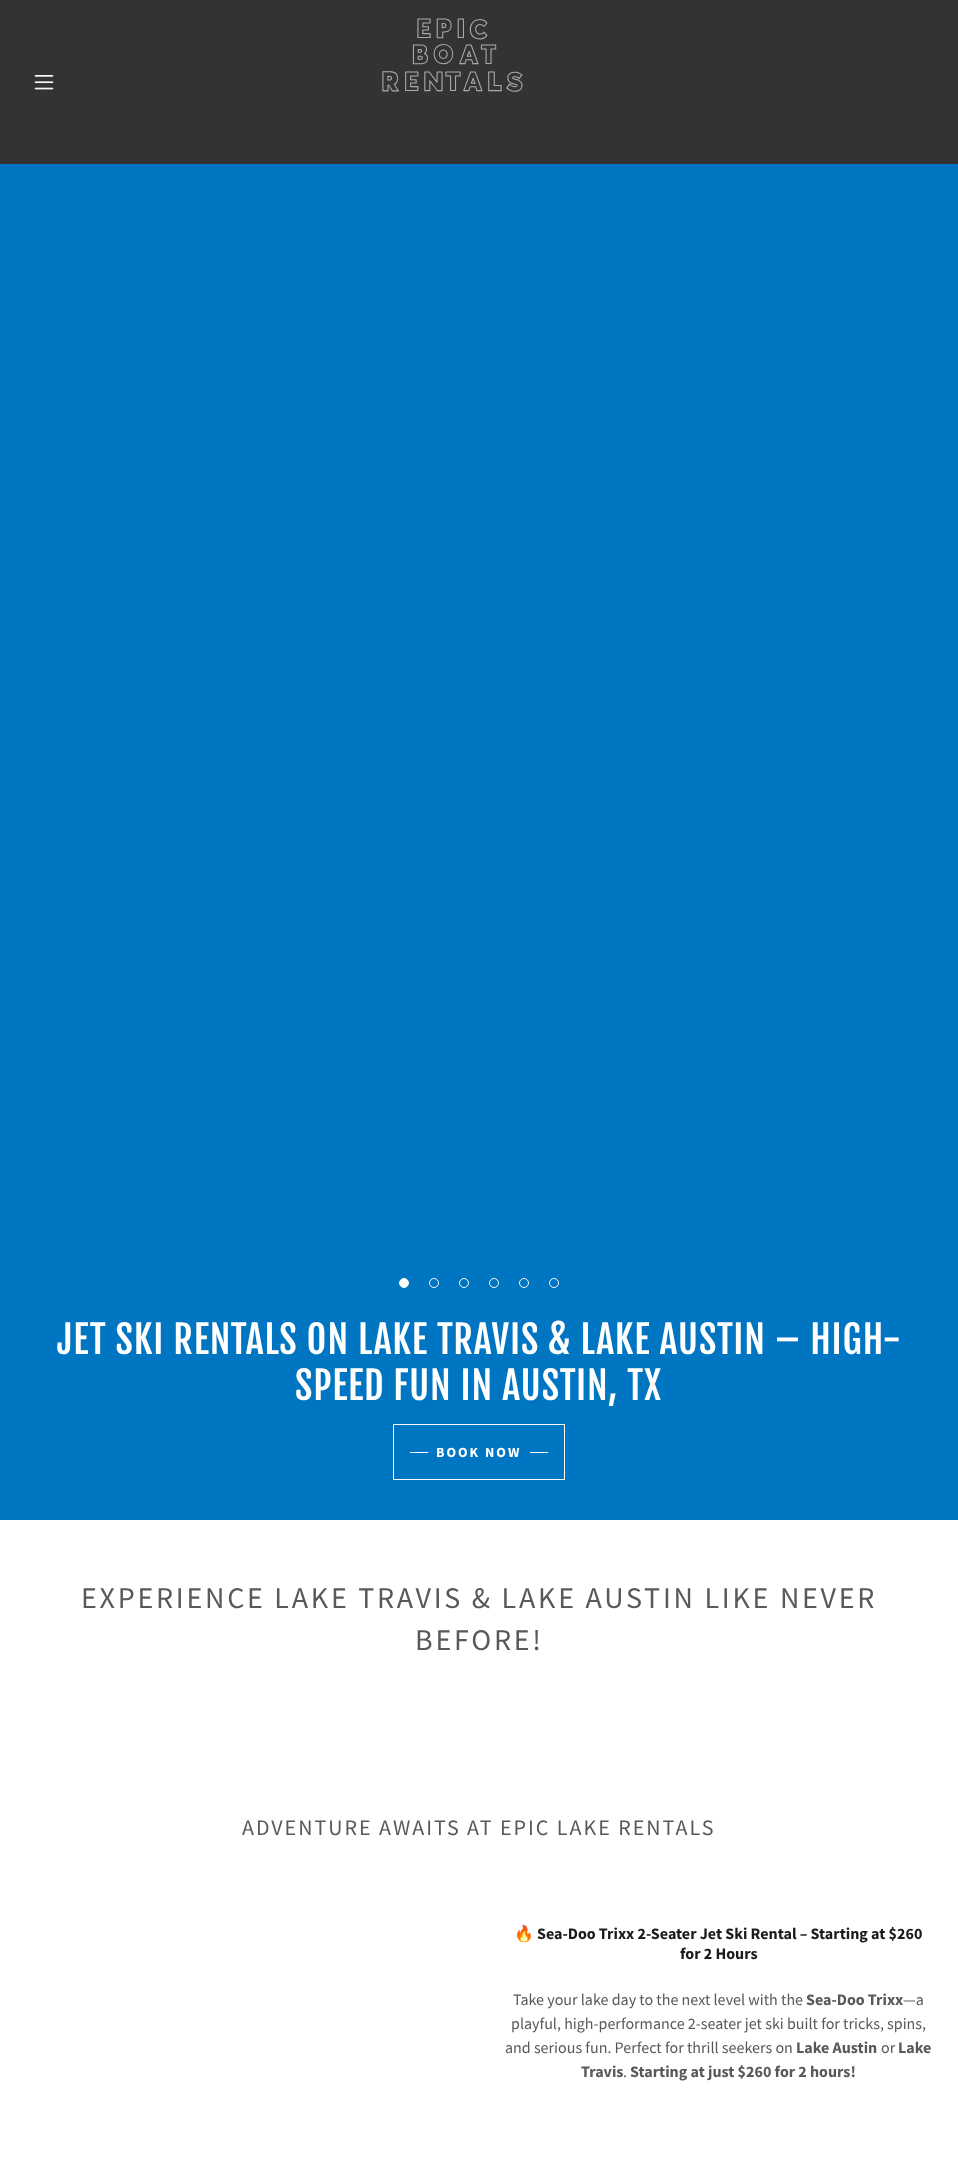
<!DOCTYPE html>
<meta charset="utf-8">
<style>body { margin: 0 } canvas { display: block }</style>
<canvas id="canvas" width="958" height="2178"></canvas>
<script type="module">
  const canvas = document.getElementById("canvas");
  const ctx = canvas.getContext("2d");
  ctx.miterLimit = 4;
  ctx.fontKerning = "normal";
  async function loadImage(src) {
    const img = new Image();
    img.src = src;
    await img.decode();
    return img;
  }

  ctx.fillStyle = "#0075c1";
  ctx.fillRect(0, 0, 958, 2178);
  ctx.fillStyle = "#333333";
  ctx.fillRect(0, 0, 958, 164);
  ctx.drawImage(await loadImage("img1.png"), 34, 75, 20, 15);
  ctx.letterSpacing = "6px";
  ctx.font = "bold 22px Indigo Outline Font";
  ctx.fillStyle = "#a9a9a9";
  ctx.fillText("EPIC", 417, 38);
  ctx.fillText("BOAT", 412, 64);
  ctx.fillText("RENTALS", 382, 91);
  ctx.fillStyle = "#ffffff";
  ctx.beginPath();
  ctx.arc(404, 1283, 4.5, 0, Math.PI * 2);
  ctx.fill();
  ctx.strokeStyle = "#f8f8f9";
  ctx.stroke();
  ctx.beginPath();
  ctx.arc(434, 1283, 4.5, 0, Math.PI * 2);
  ctx.stroke();
  ctx.beginPath();
  ctx.arc(464, 1283, 4.5, 0, Math.PI * 2);
  ctx.stroke();
  ctx.beginPath();
  ctx.arc(494, 1283, 4.5, 0, Math.PI * 2);
  ctx.stroke();
  ctx.beginPath();
  ctx.arc(524, 1283, 4.5, 0, Math.PI * 2);
  ctx.stroke();
  ctx.beginPath();
  ctx.arc(554, 1283, 4.5, 0, Math.PI * 2);
  ctx.stroke();
  ctx.letterSpacing = "0.87px";
  ctx.font = "38px Fjalla One";
  ctx.fillText("JET SKI RENTALS ON LAKE TRAVIS & LAKE AUSTIN – HIGH-", 57, 1354);
  ctx.fillText("SPEED FUN IN AUSTIN, TX", 295, 1400);
  ctx.strokeStyle = "#ffffff";
  ctx.strokeRect(393.5, 1424.5, 171, 55);
  ctx.fillRect(410, 1452, 18, 1);
  ctx.letterSpacing = "2px";
  ctx.font = "bold 14px Source Sans Pro";
  ctx.fillText("BOOK NOW", 436, 1457);
  ctx.fillRect(530, 1452, 18, 1);
  ctx.fillRect(0, 1520, 958, 658);
  ctx.letterSpacing = "2.75px";
  ctx.font = "30px Source Sans Pro";
  ctx.fillStyle = "#595959";
  ctx.fillText("EXPERIENCE LAKE TRAVIS & LAKE AUSTIN LIKE NEVER", 81, 1608);
  ctx.fillText("BEFORE!", 415, 1650);
  ctx.letterSpacing = "2px";
  ctx.font = "22px Source Sans Pro";
  ctx.fillText("ADVENTURE AWAITS AT EPIC LAKE RENTALS", 242, 1835);
  ctx.letterSpacing = "0px";
  ctx.font = "bold 16px Noto Color Emoji";
  ctx.fillStyle = "#1b1b1b";
  ctx.fillText("🔥", 514, 1939);
  ctx.font = "bold 16px Source Sans Pro";
  ctx.fillText("Sea-Doo Trixx 2-Seater Jet Ski Rental – Starting at $260", 537, 1939);
  ctx.fillText("for 2 Hours", 680, 1959);
  ctx.font = "16px Source Sans Pro";
  ctx.fillStyle = "#595959";
  ctx.fillText("Take your lake day to the next level with the", 513, 2005);
  ctx.font = "bold 16px Source Sans Pro";
  ctx.fillText("Sea-Doo Trixx", 806, 2005);
  ctx.font = "16px Source Sans Pro";
  ctx.fillText("—a", 903, 2005);
  ctx.fillText("playful, high-performance 2-seater jet ski built for tricks, spins,", 511, 2029);
  ctx.fillText("and serious fun. Perfect for thrill seekers on", 505, 2053);
  ctx.font = "bold 16px Source Sans Pro";
  ctx.fillText("Lake Austin", 796, 2053);
  ctx.font = "16px Source Sans Pro";
  ctx.fillText("or", 881, 2053);
  ctx.font = "bold 16px Source Sans Pro";
  ctx.fillText("Lake", 898, 2053);
  ctx.fillText("Travis", 581, 2077);
  ctx.font = "16px Source Sans Pro";
  ctx.fillText(".", 623, 2077);
  ctx.font = "bold 16px Source Sans Pro";
  ctx.fillText("Starting at just $260 for 2 hours!", 630, 2077);
</script>
